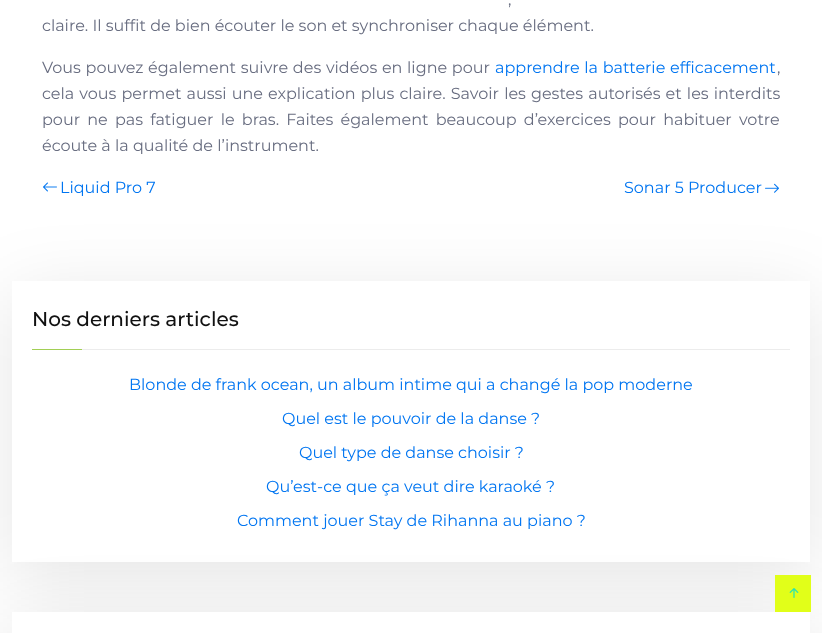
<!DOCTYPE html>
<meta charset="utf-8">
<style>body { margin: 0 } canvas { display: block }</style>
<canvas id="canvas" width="822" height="633"></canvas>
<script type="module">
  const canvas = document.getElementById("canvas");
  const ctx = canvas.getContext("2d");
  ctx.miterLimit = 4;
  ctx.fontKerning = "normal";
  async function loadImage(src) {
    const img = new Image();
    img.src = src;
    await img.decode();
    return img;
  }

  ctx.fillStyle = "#ffffff";
  ctx.fillRect(0, 0, 822, 633);
  ctx.font = "16px Montserrat";
  ctx.fillStyle = "#686d80";
  ctx.fillText(",", 508, 5);
  ctx.fillText("claire. Il suffit de bien écouter le son et synchroniser chaque élément.", 42, 31);
  ctx.wordSpacing = "0.5px";
  ctx.fillText("Vous pouvez également suivre des vidéos en ligne pour", 42, 73);
  ctx.fillStyle = "#0075f1";
  ctx.fillText("apprendre la batterie efficacement", 495, 73);
  ctx.wordSpacing = "0px";
  ctx.fillStyle = "#686d80";
  ctx.fillText(",", 777, 73);
  ctx.wordSpacing = "0.9px";
  ctx.fillText("cela vous permet aussi une explication plus claire. Savoir les gestes autorisés et les interdits", 42, 99);
  ctx.wordSpacing = "3px";
  ctx.fillText("pour ne pas fatiguer le bras. Faites également beaucoup d’exercices pour habituer votre", 42, 125);
  ctx.wordSpacing = "0px";
  ctx.fillText("écoute à la qualité de l’instrument.", 42, 151);
  ctx.fillStyle = "rgba(0, 0, 0, 0.1)";
  ctx.filter = "blur(38px)";
  ctx.beginPath();
  ctx.rect(12, 296, 798, 281);
  ctx.fill();
  ctx.filter = "none";
  ctx.drawImage(await loadImage("img1.png"), 43, 182, 14, 10);
  ctx.fillStyle = "#0075f1";
  ctx.fillText("Liquid Pro 7", 60, 193);
  ctx.fillText("Sonar 5 Producer", 624, 193);
  ctx.drawImage(await loadImage("img2.png"), 765, 183, 14, 10);
  ctx.fillStyle = "#ffffff";
  ctx.fillRect(12, 281, 798, 281);
  ctx.font = "500 20px Montserrat";
  ctx.fillStyle = "#111111";
  ctx.fillText("Nos derniers articles", 32, 326);
  ctx.fillStyle = "#a2cf55";
  ctx.fillRect(32, 349, 50, 1);
  ctx.fillStyle = "#ececec";
  ctx.fillRect(82, 349, 708, 1);
  ctx.font = "16px Montserrat";
  ctx.fillStyle = "#0075f1";
  ctx.fillText("Blonde de frank ocean, un album intime qui a changé la pop moderne", 129, 390);
  ctx.fillText("Quel est le pouvoir de la danse ?", 282, 424);
  ctx.fillText("Quel type de danse choisir ?", 299, 458);
  ctx.fillText("Qu’est-ce que ça veut dire karaoké ?", 266, 492);
  ctx.fillStyle = "rgba(0, 0, 0, 0.1)";
  ctx.filter = "blur(38px)";
  ctx.beginPath();
  ctx.rect(12, 627, 798, 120);
  ctx.fill();
  ctx.filter = "none";
  ctx.fillStyle = "#0075f1";
  ctx.fillText("Comment jouer Stay de Rihanna au piano ?", 237, 526);
  ctx.fillStyle = "#ffffff";
  ctx.fillRect(12, 612, 798, 21);
  ctx.fillStyle = "#e1ff19";
  ctx.fillRect(775, 575, 36, 37);
  ctx.drawImage(await loadImage("img3.png"), 789, 588, 10, 10);
</script>
